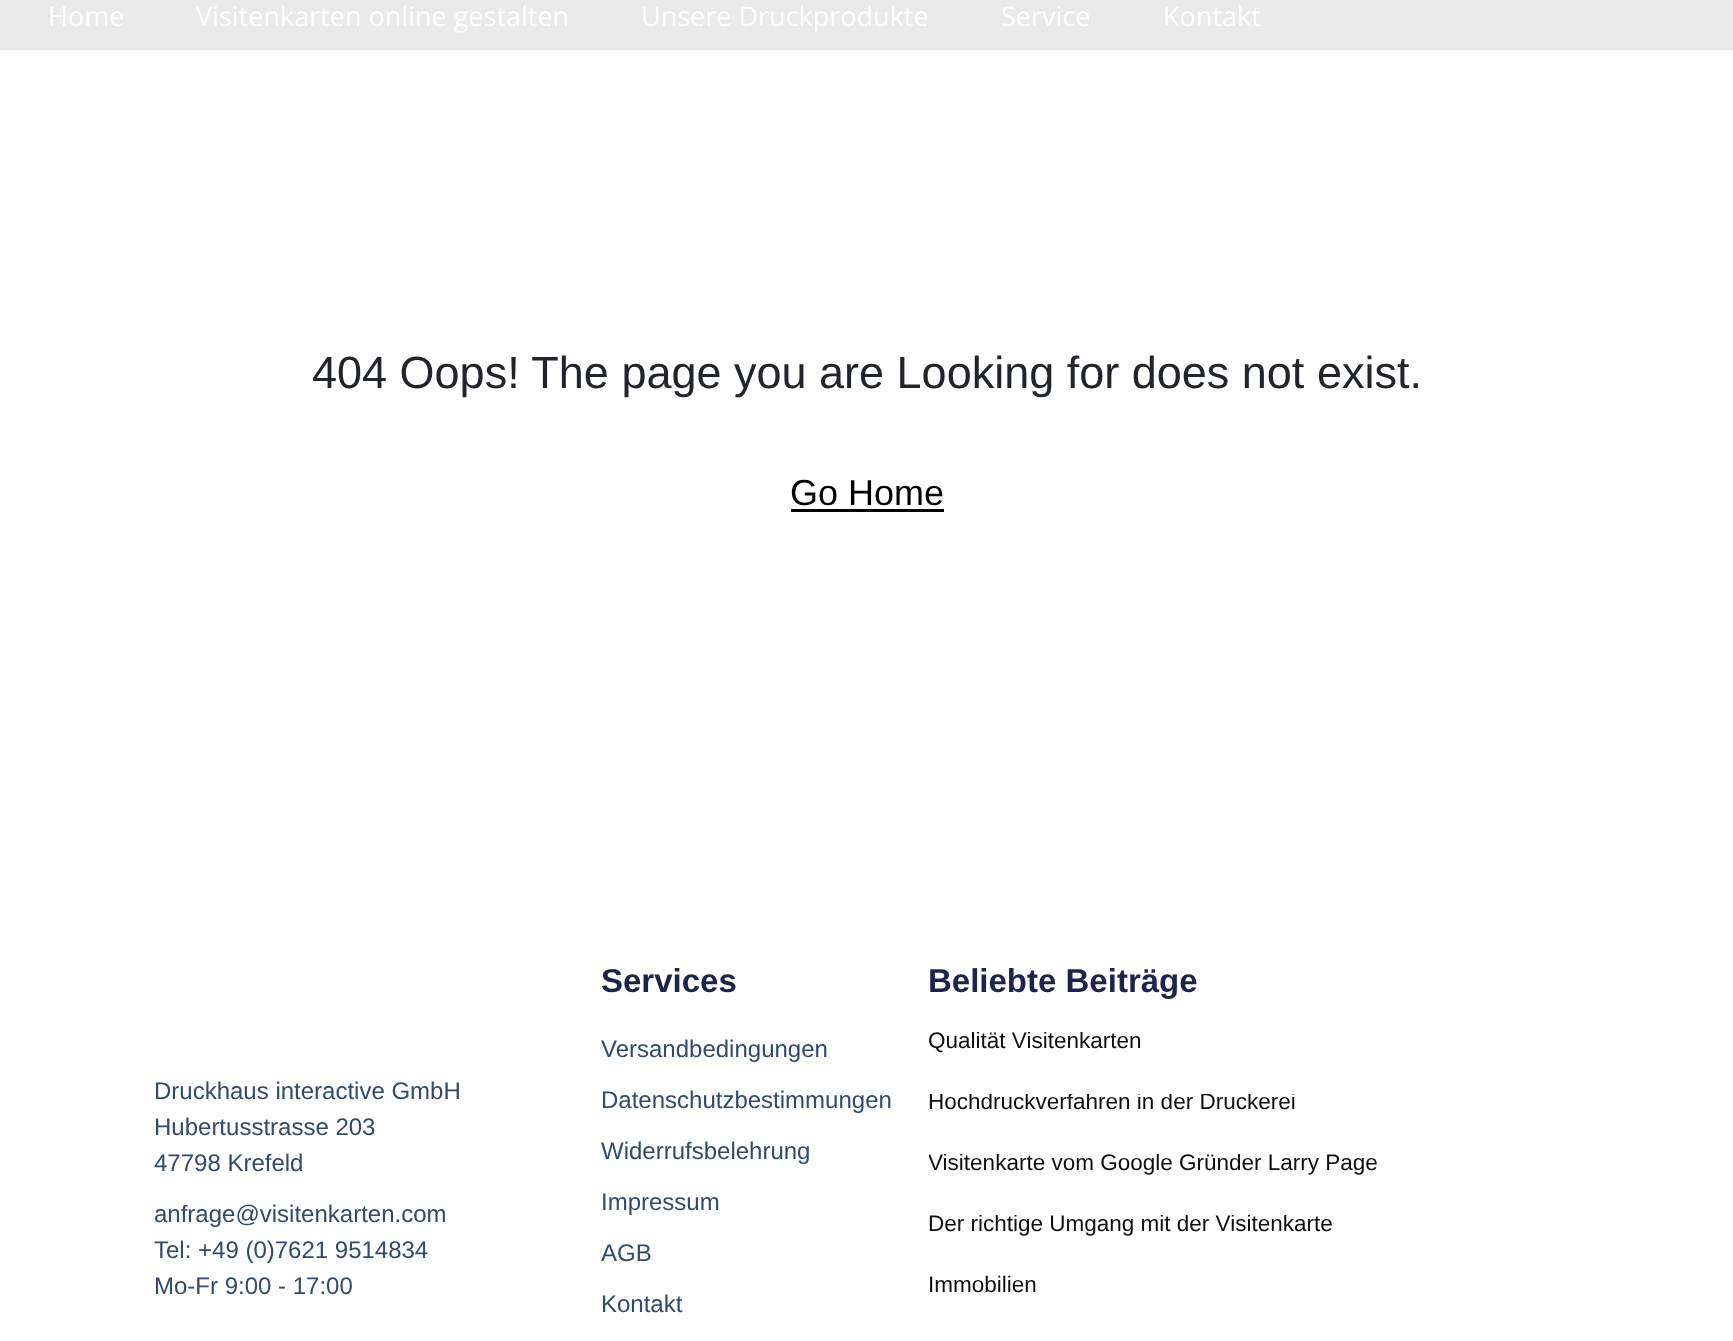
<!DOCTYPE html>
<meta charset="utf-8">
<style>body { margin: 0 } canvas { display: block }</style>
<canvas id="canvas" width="1733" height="1341"></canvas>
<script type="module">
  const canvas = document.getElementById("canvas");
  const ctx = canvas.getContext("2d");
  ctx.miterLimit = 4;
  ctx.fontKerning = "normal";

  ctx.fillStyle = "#ffffff";
  ctx.fillRect(0, 0, 1733, 1341);
  ctx.fillStyle = "#eaeaea";
  ctx.fillRect(0, 0, 1733, 50);
  ctx.font = "27px Open Sans";
  ctx.fillStyle = "#ffffff";
  ctx.fillText("Home", 48, 26);
  ctx.fillText("Visitenkarten online gestalten", 196, 26);
  ctx.fillText("Unsere Druckprodukte", 641, 26);
  ctx.fillText("Service", 1001, 26);
  ctx.fillText("Kontakt", 1163, 26);
  ctx.font = "45px Liberation Sans";
  ctx.fillStyle = "#212529";
  ctx.fillText("404 Oops! The page you are Looking for does not exist.", 312, 388);
  ctx.font = "36px Liberation Sans";
  ctx.fillStyle = "#000000";
  ctx.fillText("Go Home", 790, 505);
  ctx.fillRect(791, 509, 153, 3);
  ctx.font = "24px Liberation Sans";
  ctx.fillStyle = "#324a6d";
  ctx.fillText("Druckhaus interactive GmbH", 154, 1099);
  ctx.fillText("Hubertusstrasse 203", 154, 1135);
  ctx.fillText("47798 Krefeld", 154, 1171);
  ctx.fillText("anfrage@visitenkarten.com", 154, 1222);
  ctx.fillText("Tel: +49 (0)7621 9514834", 154, 1258);
  ctx.fillText("Mo-Fr 9:00 - 17:00", 154, 1294);
  ctx.font = "bold 33px Liberation Sans";
  ctx.fillStyle = "#1c244b";
  ctx.fillText("Services", 601, 992);
  ctx.font = "24px Liberation Sans";
  ctx.fillStyle = "#324a6d";
  ctx.fillText("Versandbedingungen", 601, 1057);
  ctx.fillText("Datenschutzbestimmungen", 601, 1108);
  ctx.fillText("Widerrufsbelehrung", 601, 1159);
  ctx.fillText("Impressum", 601, 1210);
  ctx.fillText("AGB", 601, 1261);
  ctx.fillText("Kontakt", 601, 1312);
  ctx.font = "bold 33px Liberation Sans";
  ctx.fillStyle = "#1c244b";
  ctx.fillText("Beliebte Beiträge", 928, 992);
  ctx.save();
  ctx.beginPath();
  ctx.rect(929, 1032, 667, 62);
  ctx.clip();
  ctx.font = "22.5px Liberation Sans";
  ctx.fillStyle = "#0e0e0e";
  ctx.fillText("Qualität Visitenkarten", 928, 1048);
  ctx.restore();
  ctx.save();
  ctx.beginPath();
  ctx.rect(929, 1094, 667, 60);
  ctx.clip();
  ctx.font = "22.5px Liberation Sans";
  ctx.fillStyle = "#0e0e0e";
  ctx.fillText("Hochdruckverfahren in der Druckerei", 928, 1109);
  ctx.restore();
  ctx.save();
  ctx.beginPath();
  ctx.rect(929, 1154, 667, 61);
  ctx.clip();
  ctx.font = "22.5px Liberation Sans";
  ctx.fillStyle = "#0e0e0e";
  ctx.fillText("Visitenkarte vom Google Gründer Larry Page", 928, 1170);
  ctx.restore();
  ctx.save();
  ctx.beginPath();
  ctx.rect(929, 1215, 667, 60);
  ctx.clip();
  ctx.font = "22.5px Liberation Sans";
  ctx.fillStyle = "#0e0e0e";
  ctx.fillText("Der richtige Umgang mit der Visitenkarte", 928, 1231);
  ctx.restore();
  ctx.font = "22.5px Liberation Sans";
  ctx.fillStyle = "#0e0e0e";
  ctx.fillText("Immobilien", 928, 1292);
</script>
